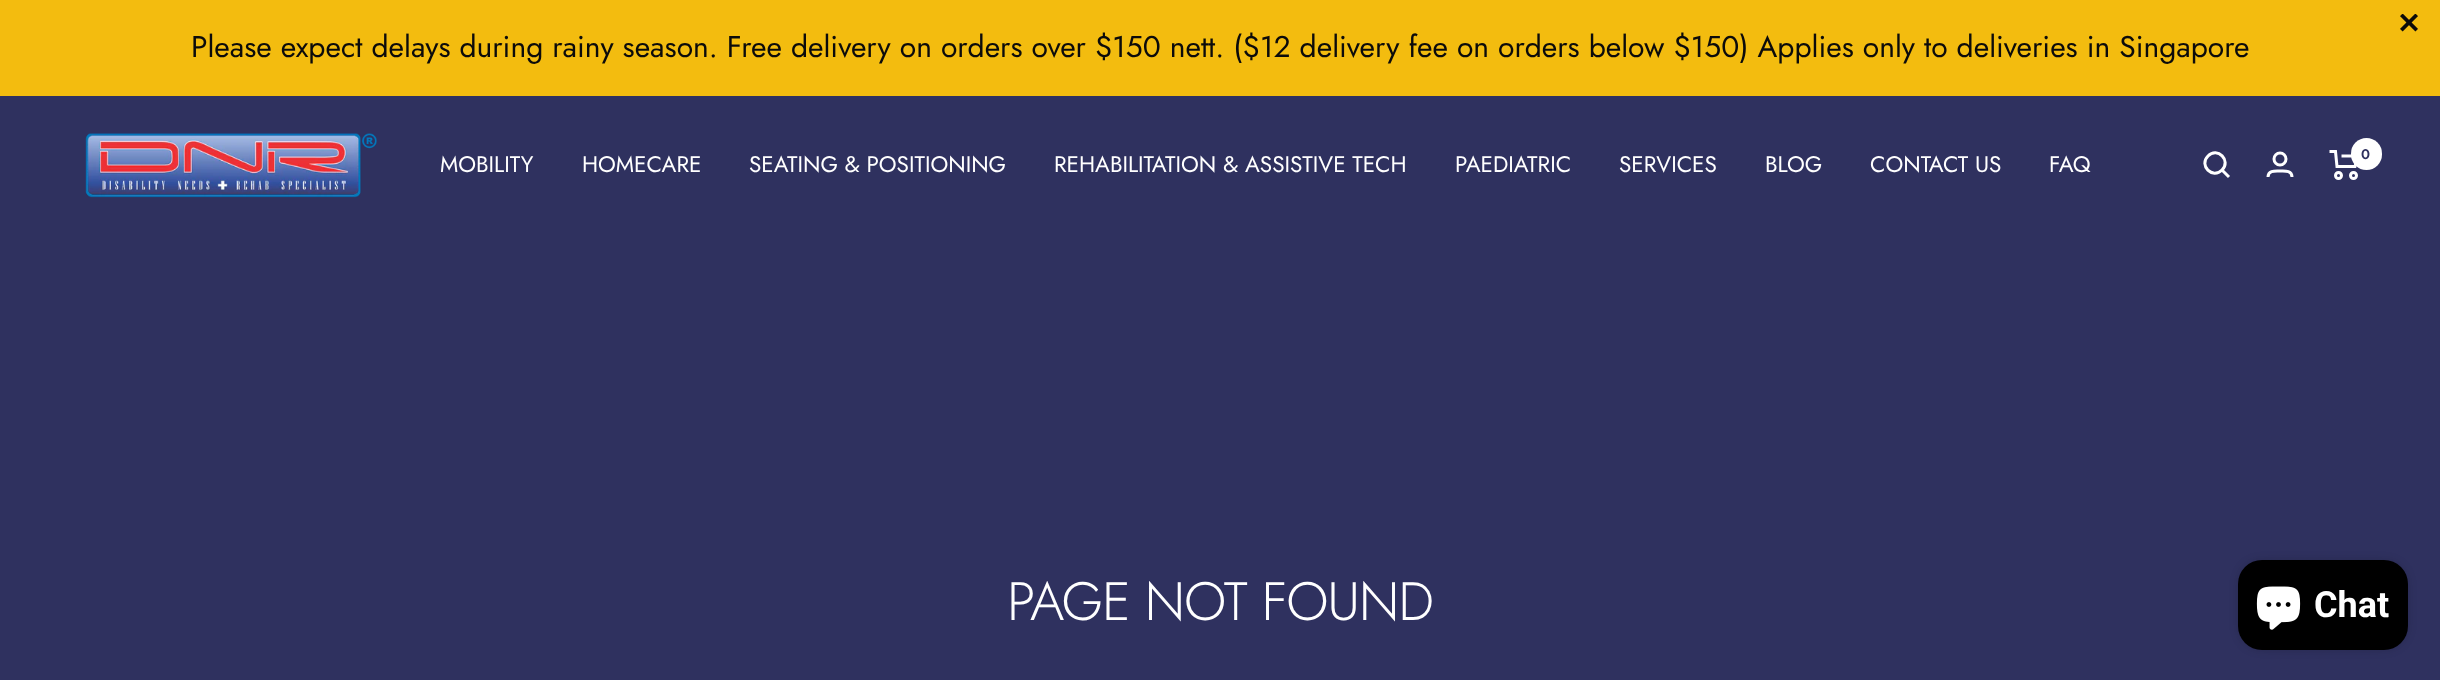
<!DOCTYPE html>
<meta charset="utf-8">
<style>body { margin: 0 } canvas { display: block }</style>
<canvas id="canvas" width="2440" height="680"></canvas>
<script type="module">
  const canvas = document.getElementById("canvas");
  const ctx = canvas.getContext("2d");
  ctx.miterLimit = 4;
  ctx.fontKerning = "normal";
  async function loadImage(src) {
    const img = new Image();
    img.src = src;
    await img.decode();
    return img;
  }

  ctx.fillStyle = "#2f315f";
  ctx.fillRect(0, 0, 2440, 680);
  ctx.fillStyle = "#f3bc0f";
  ctx.fillRect(0, 0, 2440, 96);
  ctx.drawImage(await loadImage("img1.png"), 2400, 14, 18, 18);
  ctx.font = "30px Jost";
  ctx.fillStyle = "#0c0b0b";
  ctx.fillText("Please expect delays during rainy season. Free delivery on orders over $150 nett. ($12 delivery fee on orders below $150) Applies only to deliveries in Singapore", 191, 57);
  ctx.drawImage(await loadImage("img2.png"), 85, 133, 292, 65);
  ctx.font = "22.5px Jost";
  ctx.fillStyle = "#ffffff";
  ctx.fillText("MOBILITY", 440, 172);
  ctx.fillText("HOMECARE", 582, 172);
  ctx.fillText("SEATING & POSITIONING", 749, 172);
  ctx.fillText("REHABILITATION & ASSISTIVE TECH", 1054, 172);
  ctx.fillText("PAEDIATRIC", 1455, 172);
  ctx.fillText("SERVICES", 1619, 172);
  ctx.fillText("BLOG", 1765, 172);
  ctx.fillText("CONTACT US", 1870, 172);
  ctx.fillText("FAQ", 2049, 172);
  ctx.beginPath();
  ctx.moveTo(2222, 170);
  ctx.bezierCurveTo(2231.5, 160.5, 2217.5, 146.5, 2208, 156);
  ctx.bezierCurveTo(2198.5, 165.5, 2212.5, 179.5, 2222, 170);
  ctx.closePath();
  ctx.moveTo(2222, 170);
  ctx.lineTo(2229, 177);
  ctx.strokeStyle = "#ffffff";
  ctx.lineWidth = 3;
  ctx.stroke();
  ctx.beginPath();
  ctx.arc(2280, 159, 6, 0, Math.PI * 2);
  ctx.stroke();
  ctx.beginPath();
  ctx.moveTo(2268, 177);
  ctx.bezierCurveTo(2268, 170, 2275.5, 171, 2280, 171);
  ctx.bezierCurveTo(2284.5, 171, 2292, 170, 2292, 177);
  ctx.stroke();
  ctx.beginPath();
  ctx.moveTo(2329.5, 151.5);
  ctx.lineTo(2335.5, 151.5);
  ctx.lineTo(2337, 166.5);
  ctx.lineTo(2355, 166.5);
  ctx.lineTo(2358, 156);
  ctx.lineTo(2341.5, 156);
  ctx.stroke();
  ctx.beginPath();
  ctx.arc(2338.5, 175.5, 3, 0, Math.PI * 2);
  ctx.stroke();
  ctx.beginPath();
  ctx.arc(2353.5, 175.5, 3, 0, Math.PI * 2);
  ctx.stroke();
  ctx.beginPath();
  ctx.roundRect(2351, 138, 31, 32, 15.5);
  ctx.fill();
  ctx.font = "600 14px Jost";
  ctx.fillStyle = "#2f315f";
  ctx.fillText("0", 2361, 159);
  ctx.letterSpacing = "-1.25px";
  ctx.font = "300 54px Jost";
  ctx.fillStyle = "#ffffff";
  ctx.fillText("PAGE NOT FOUND", 1007, 620);
  ctx.fillStyle = "rgba(0, 0, 0, 0.15)";
  ctx.filter = "blur(4px)";
  ctx.beginPath();
  ctx.roundRect(2238, 560, 170, 90, 24);
  ctx.fill();
  ctx.filter = "none";
  ctx.fillStyle = "#000000";
  ctx.beginPath();
  ctx.roundRect(2238, 560, 170, 90, 24);
  ctx.fill();
  ctx.drawImage(await loadImage("img3.png"), 2256, 586, 45, 44);
  ctx.letterSpacing = "0px";
  ctx.font = "bold 36px Roboto";
  ctx.fillStyle = "#ffffff";
  ctx.fillText("Chat", 2314, 617);
</script>
